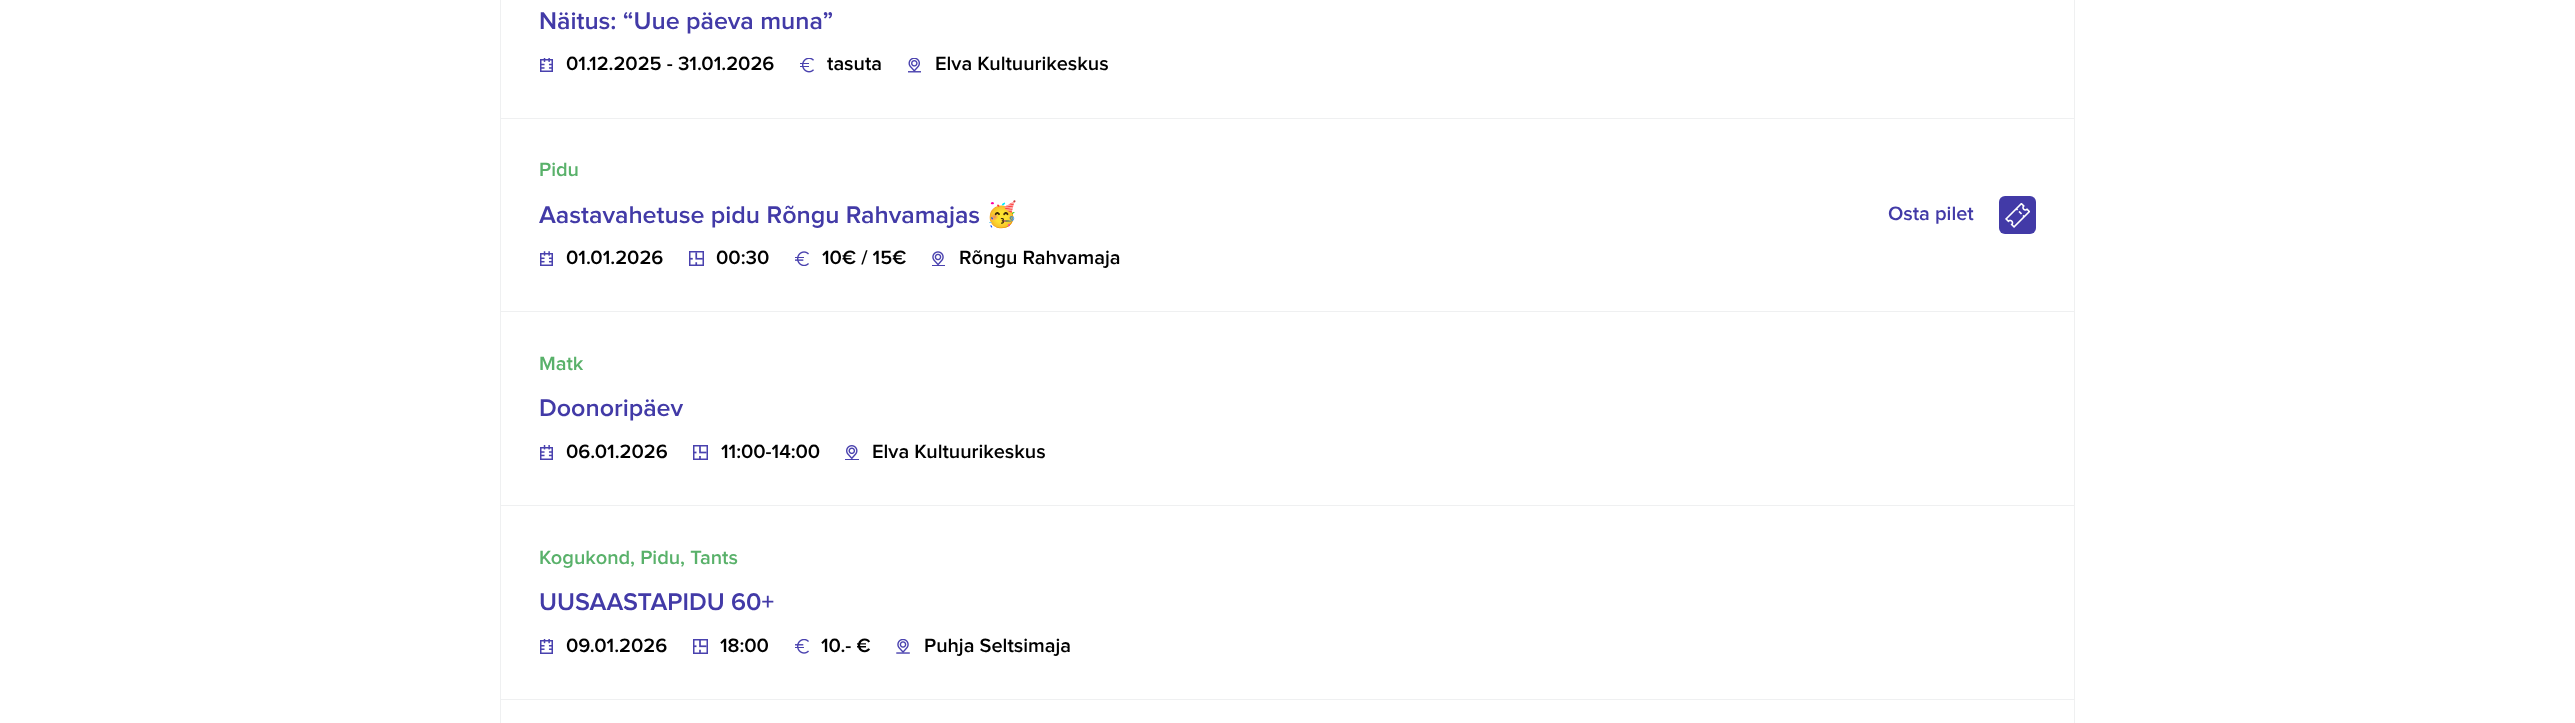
<!DOCTYPE html>
<meta charset="utf-8">
<style>body { margin: 0 } canvas { display: block }</style>
<canvas id="canvas" width="2575" height="723"></canvas>
<script type="module">
  const canvas = document.getElementById("canvas");
  const ctx = canvas.getContext("2d");
  ctx.miterLimit = 4;
  ctx.fontKerning = "normal";
  async function loadImage(src) {
    const img = new Image();
    img.src = src;
    await img.decode();
    return img;
  }

  ctx.fillStyle = "#ffffff";
  ctx.fillRect(0, 0, 2575, 723);
  ctx.strokeStyle = "#eff0f1";
  ctx.strokeRect(500.5, -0.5, 1574, 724);
  ctx.fillStyle = "#eff0f1";
  ctx.fillRect(501, 118, 1573, 1);
  ctx.font = "600 25px Proxima Nova";
  ctx.fillStyle = "#423aa7";
  ctx.fillText("Näitus: “Uue päeva muna”", 539, 29);
  ctx.drawImage(await loadImage("img1.png"), 540, 58, 13, 14);
  ctx.font = "600 20px Proxima Nova";
  ctx.fillStyle = "#000000";
  ctx.fillText("01.12.2025 - 31.01.2026", 566, 70);
  ctx.drawImage(await loadImage("img2.png"), 800, 58, 14, 15);
  ctx.fillText("tasuta", 827, 70);
  ctx.drawImage(await loadImage("img3.png"), 908, 58, 13, 15);
  ctx.fillText("Elva Kultuurikeskus", 935, 70);
  ctx.fillStyle = "#eff0f1";
  ctx.fillRect(501, 311, 1573, 1);
  ctx.fillStyle = "#59b16a";
  ctx.fillText("Pidu", 539, 176);
  ctx.font = "600 25px Proxima Nova";
  ctx.fillStyle = "#423aa7";
  ctx.fillText("Aastavahetuse pidu Rõngu Rahvamajas", 539, 223);
  ctx.font = "bold 25px Noto Color Emoji";
  ctx.fillText("🥳", 986, 223);
  ctx.drawImage(await loadImage("img4.png"), 540, 251, 13, 15);
  ctx.font = "600 20px Proxima Nova";
  ctx.fillStyle = "#000000";
  ctx.fillText("01.01.2026", 566, 264);
  ctx.drawImage(await loadImage("img5.png"), 689, 251, 15, 15);
  ctx.fillText("00:30", 716, 264);
  ctx.drawImage(await loadImage("img6.png"), 795, 251, 14, 15);
  ctx.fillText("10€ / 15€", 822, 264);
  ctx.drawImage(await loadImage("img7.png"), 932, 251, 13, 15);
  ctx.fillText("Rõngu Rahvamaja", 959, 264);
  ctx.fillStyle = "#423aa7";
  ctx.fillText("Osta pilet", 1888, 220);
  ctx.beginPath();
  ctx.roundRect(1999, 196, 37, 38, 6);
  ctx.fill();
  ctx.drawImage(await loadImage("img8.png"), 2005, 203, 25, 25);
  ctx.fillStyle = "#eff0f1";
  ctx.fillRect(501, 505, 1573, 1);
  ctx.fillStyle = "#59b16a";
  ctx.fillText("Matk", 539, 370);
  ctx.font = "600 25px Proxima Nova";
  ctx.fillStyle = "#423aa7";
  ctx.fillText("Doonoripäev", 539, 416);
  ctx.drawImage(await loadImage("img9.png"), 540, 445, 13, 15);
  ctx.font = "600 20px Proxima Nova";
  ctx.fillStyle = "#000000";
  ctx.fillText("06.01.2026", 566, 458);
  ctx.drawImage(await loadImage("img10.png"), 693, 445, 15, 15);
  ctx.fillText("11:00-14:00", 721, 458);
  ctx.drawImage(await loadImage("img11.png"), 845, 445, 14, 15);
  ctx.fillText("Elva Kultuurikeskus", 872, 458);
  ctx.fillStyle = "#eff0f1";
  ctx.fillRect(501, 699, 1573, 1);
  ctx.fillStyle = "#59b16a";
  ctx.fillText("Kogukond, Pidu, Tants", 539, 564);
  ctx.font = "600 25px Proxima Nova";
  ctx.fillStyle = "#423aa7";
  ctx.fillText("UUSAASTAPIDU 60+", 539, 610);
  ctx.drawImage(await loadImage("img12.png"), 540, 639, 13, 15);
  ctx.font = "600 20px Proxima Nova";
  ctx.fillStyle = "#000000";
  ctx.fillText("09.01.2026", 566, 652);
  ctx.drawImage(await loadImage("img13.png"), 693, 639, 15, 15);
  ctx.fillText("18:00", 720, 652);
  ctx.drawImage(await loadImage("img14.png"), 795, 639, 14, 15);
  ctx.fillText("10.- €", 821, 652);
  ctx.drawImage(await loadImage("img15.png"), 896, 639, 14, 15);
  ctx.fillText("Puhja Seltsimaja", 924, 652);
</script>
